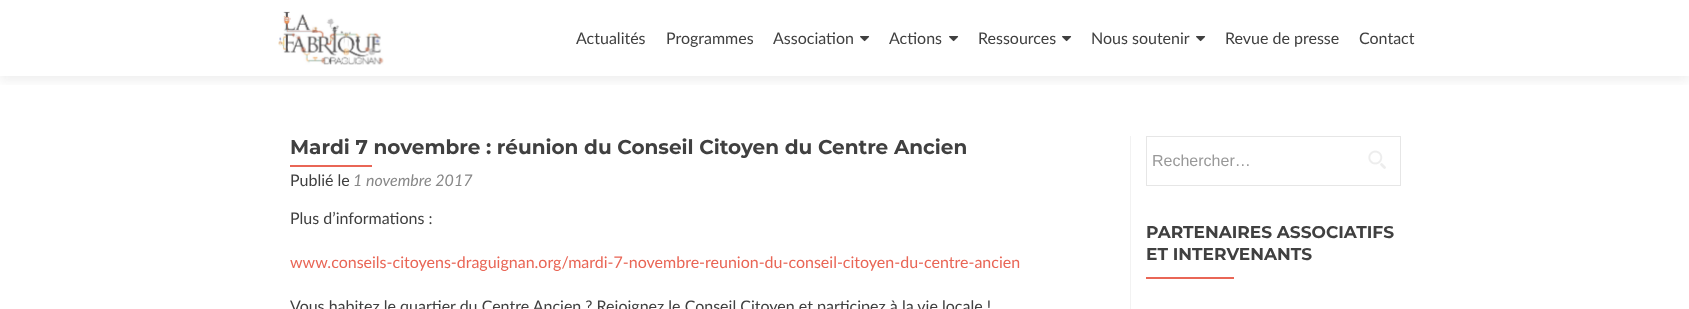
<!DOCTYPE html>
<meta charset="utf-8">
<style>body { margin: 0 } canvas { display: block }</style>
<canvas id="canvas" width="1689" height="309"></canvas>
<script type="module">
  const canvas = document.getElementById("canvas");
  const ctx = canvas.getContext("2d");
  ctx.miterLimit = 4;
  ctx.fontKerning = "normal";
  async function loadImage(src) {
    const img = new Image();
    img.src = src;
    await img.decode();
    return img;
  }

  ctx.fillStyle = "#ffffff";
  ctx.fillRect(0, 0, 1689, 309);
  ctx.save();
  ctx.beginPath();
  ctx.rect(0, 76, 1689, 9);
  ctx.clip();
  ctx.fillStyle = "rgba(50, 50, 50, 0.08)";
  ctx.filter = "blur(5.5px)";
  ctx.beginPath();
  ctx.rect(0, 5, 1689, 76);
  ctx.fill();
  ctx.filter = "none";
  ctx.restore();
  ctx.drawImage(await loadImage("img1.png"), 278, 11, 106, 54);
  ctx.font = "16px Lato";
  ctx.fillStyle = "#404040";
  ctx.fillText("Actualités", 576, 44);
  ctx.fillText("Programmes", 666, 44);
  ctx.fillText("Association", 773, 44);
  ctx.drawImage(await loadImage("img2.png"), 860, 36, 10, 6);
  ctx.fillText("Actions", 889, 44);
  ctx.drawImage(await loadImage("img2.png"), 949, 36, 10, 6);
  ctx.fillText("Ressources", 978, 44);
  ctx.drawImage(await loadImage("img2.png"), 1062, 36, 10, 6);
  ctx.fillText("Nous soutenir", 1091, 44);
  ctx.drawImage(await loadImage("img2.png"), 1196, 36, 10, 6);
  ctx.fillText("Revue de presse", 1225, 44);
  ctx.fillText("Contact", 1359, 44);
  ctx.font = "bold 20px Montserrat";
  ctx.fillText("Mardi 7 novembre : réunion du Conseil Citoyen du Centre Ancien", 290, 154);
  ctx.fillStyle = "#e96656";
  ctx.fillRect(290, 165, 82, 2);
  ctx.font = "16px Lato";
  ctx.fillStyle = "#404040";
  ctx.fillText("Publié le", 290, 186);
  ctx.font = "italic 16px Lato";
  ctx.fillStyle = "#888888";
  ctx.fillText("1 novembre 2017", 353, 186);
  ctx.font = "16px Lato";
  ctx.fillStyle = "#404040";
  ctx.fillText("Plus d’informations :", 290, 224);
  ctx.fillStyle = "#e96656";
  ctx.fillText("www.conseils-citoyens-draguignan.org/mardi-7-novembre-reunion-du-conseil-citoyen-du-centre-ancien", 290, 268);
  ctx.fillStyle = "#404040";
  ctx.fillText("Vous habitez le quartier du Centre Ancien ? Rejoignez le Conseil Citoyen et participez à la vie locale !", 290, 312);
  ctx.fillStyle = "#f2f2f2";
  ctx.fillRect(1130, 136, 1, 173);
  ctx.strokeStyle = "#e6e6e6";
  ctx.strokeRect(1146.5, 136.5, 254, 49);
  ctx.font = "16px Liberation Sans";
  ctx.fillStyle = "#999999";
  ctx.fillText("Rechercher…", 1152, 166);
  ctx.drawImage(await loadImage("img3.png"), 1368, 150, 18, 19);
  ctx.font = "bold 17px Montserrat";
  ctx.fillStyle = "#404040";
  ctx.fillText("PARTENAIRES ASSOCIATIFS", 1146, 238);
  ctx.fillText("ET INTERVENANTS", 1146, 260);
  ctx.fillStyle = "#e96656";
  ctx.fillRect(1146, 277, 88, 2);
</script>
